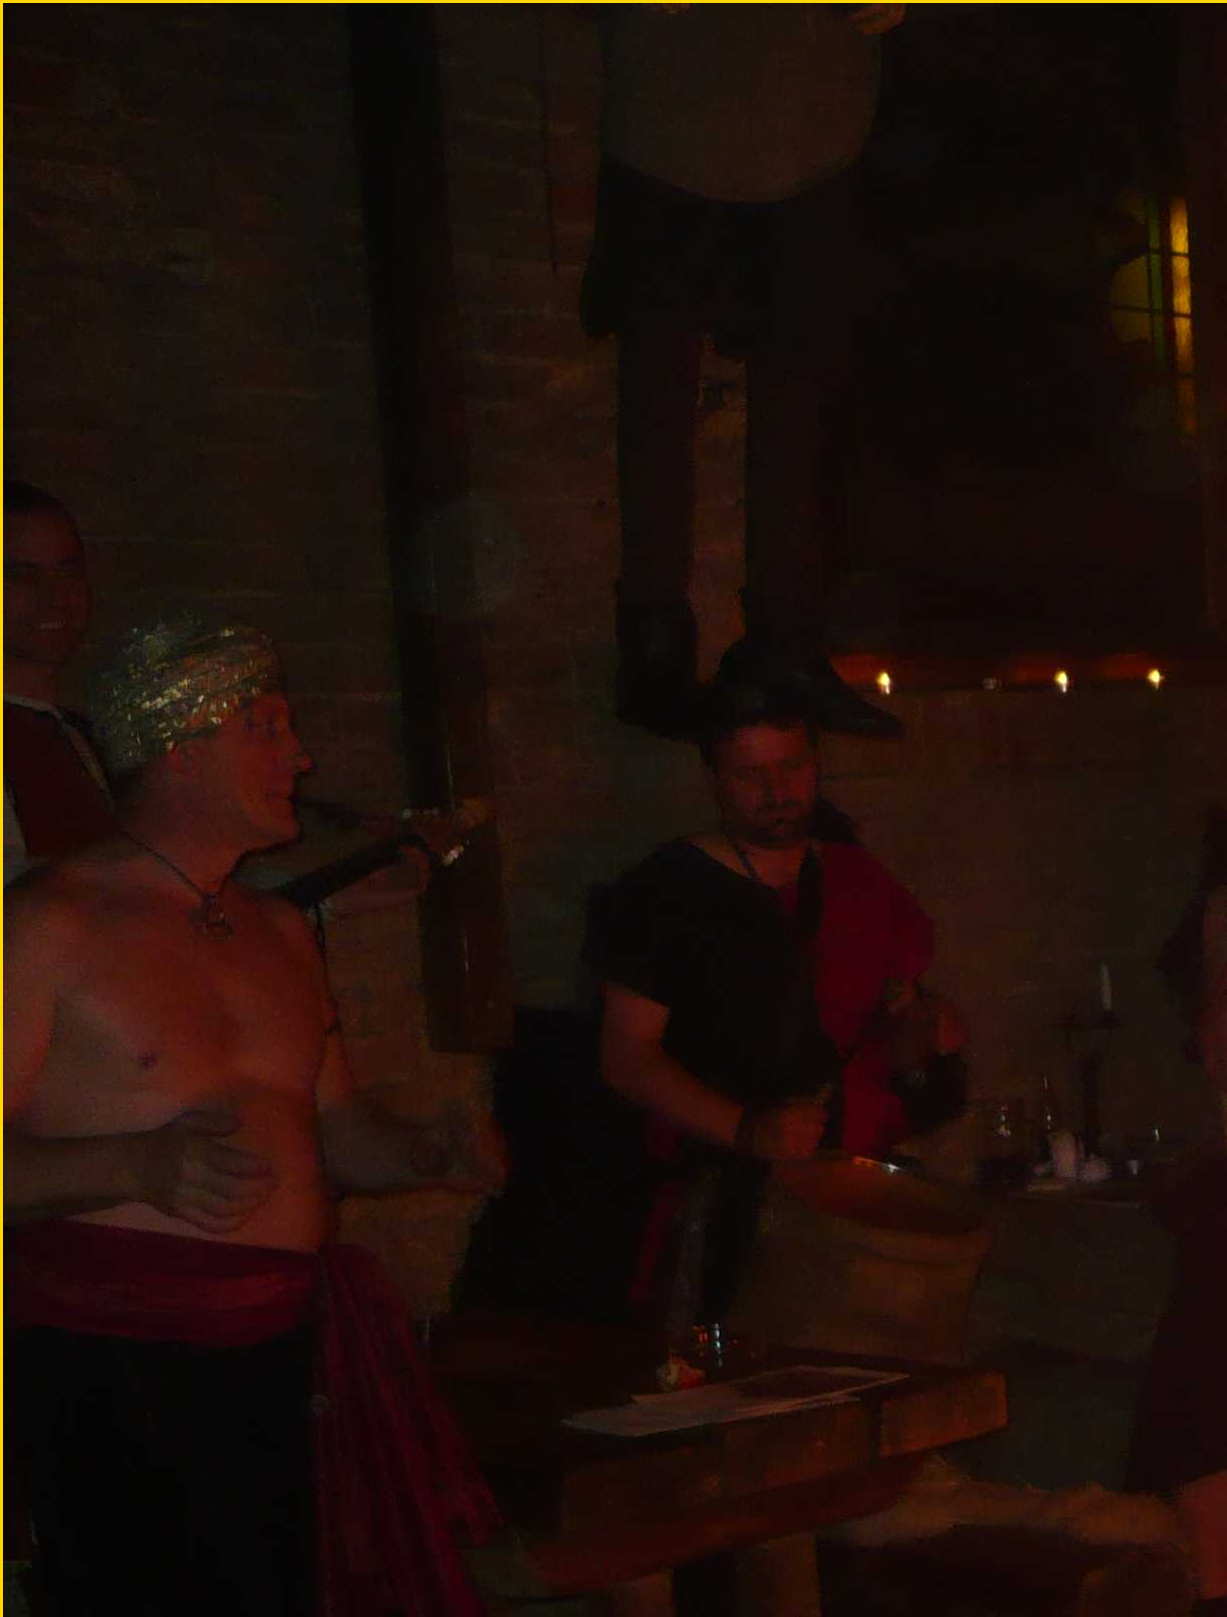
<!DOCTYPE html>
<meta charset="utf-8">
<style>body { margin: 0 } canvas { display: block }</style>
<canvas id="canvas" width="1227" height="1617"></canvas>
<script type="module">
  const canvas = document.getElementById("canvas");
  const ctx = canvas.getContext("2d");
  ctx.miterLimit = 4;
  ctx.fontKerning = "normal";
  async function loadImage(src) {
    const img = new Image();
    img.src = src;
    await img.decode();
    return img;
  }

  ctx.fillStyle = "#ffffff";
  ctx.fillRect(0, 0, 1227, 1617);
  ctx.strokeStyle = "#ffd700";
  ctx.lineWidth = 3;
  ctx.strokeRect(1.5, 1.5, 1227, 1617);
  ctx.drawImage(await loadImage("img1.png"), 3, 3, 1224, 1614);
</script>
